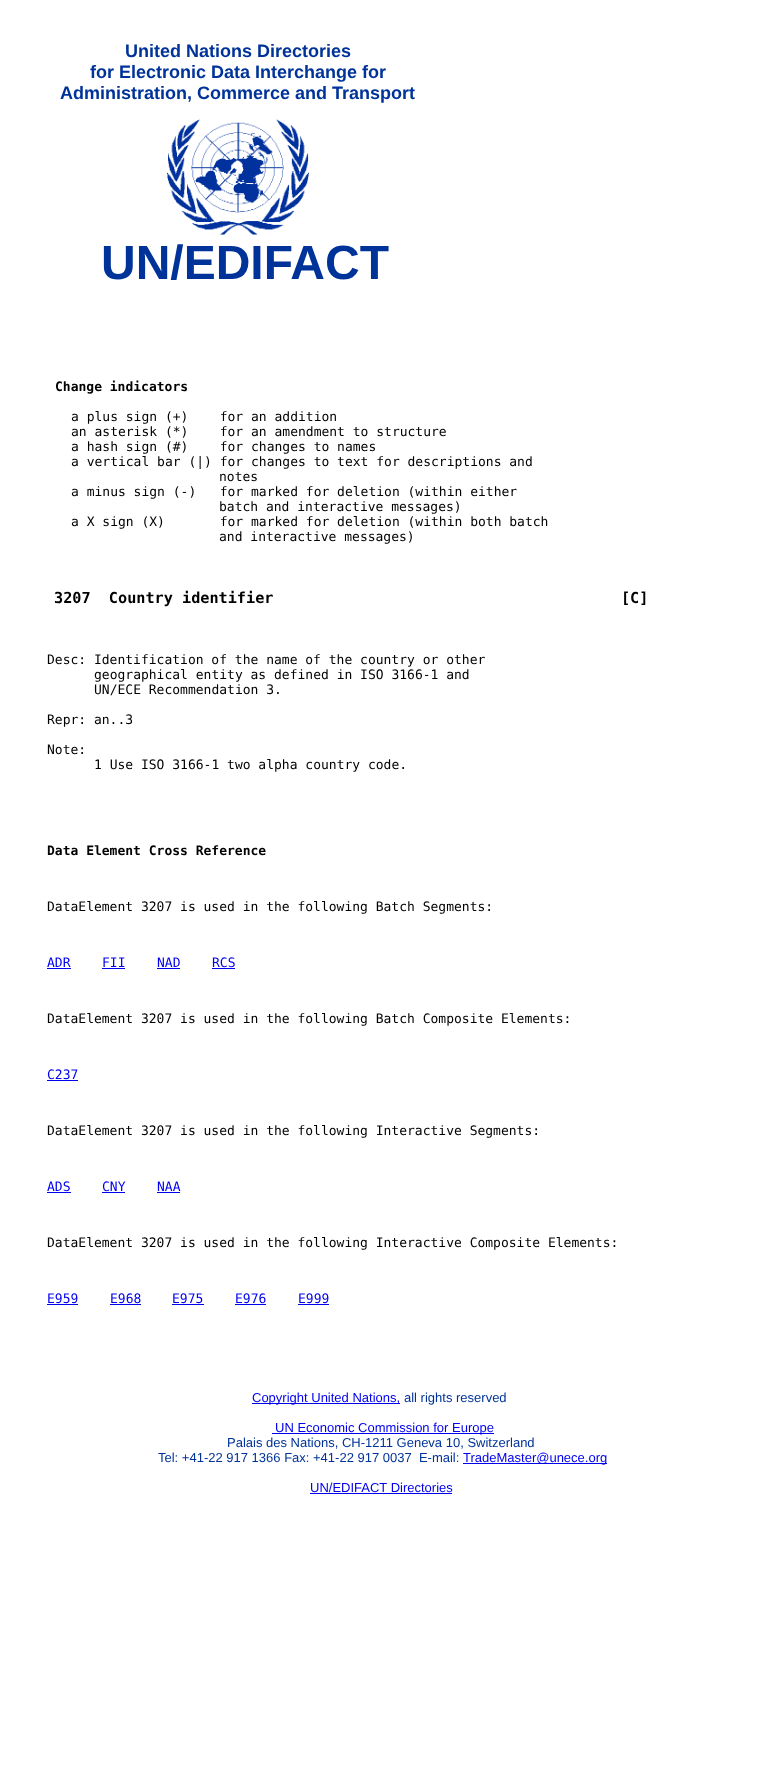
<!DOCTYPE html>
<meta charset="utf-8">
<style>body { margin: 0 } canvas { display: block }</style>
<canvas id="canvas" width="762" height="1770"></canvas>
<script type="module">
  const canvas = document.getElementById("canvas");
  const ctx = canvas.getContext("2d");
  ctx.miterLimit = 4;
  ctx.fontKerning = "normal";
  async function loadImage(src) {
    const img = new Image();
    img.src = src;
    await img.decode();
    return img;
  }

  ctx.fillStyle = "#ffffff";
  ctx.fillRect(0, 0, 762, 1770);
  ctx.font = "bold 18px Liberation Sans";
  ctx.fillStyle = "#003399";
  ctx.fillText("United Nations Directories", 125, 57);
  ctx.fillText("for Electronic Data Interchange for", 90, 78);
  ctx.fillText("Administration, Commerce and Transport", 60, 99);
  ctx.drawImage(await loadImage("img1.png"), 167, 119, 142, 116);
  ctx.font = "bold 48px Liberation Sans";
  ctx.fillText("UN/EDIFACT", 101, 279);
  ctx.font = "bold 13px DejaVu Sans Mono";
  ctx.fillStyle = "#000000";
  ctx.fillText("Change indicators", 55, 391);
  ctx.font = "13px DejaVu Sans Mono";
  ctx.fillText("a plus sign (+)    for an addition", 71, 421);
  ctx.fillText("an asterisk (*)    for an amendment to structure", 71, 436);
  ctx.fillText("a hash sign (#)    for changes to names", 71, 451);
  ctx.fillText("a vertical bar (|) for changes to text for descriptions and", 71, 466);
  ctx.fillText("notes", 219, 481);
  ctx.fillText("a minus sign (-)   for marked for deletion (within either", 71, 496);
  ctx.fillText("batch and interactive messages)", 219, 511);
  ctx.fillText("a X sign (X)       for marked for deletion (within both batch", 71, 526);
  ctx.fillText("and interactive messages)", 219, 541);
  ctx.font = "bold 15.2px DejaVu Sans Mono";
  ctx.fillText("3207  Country identifier                                      [C]", 54, 603);
  ctx.font = "13px DejaVu Sans Mono";
  ctx.fillText("Desc: Identification of the name of the country or other", 47, 664);
  ctx.fillText("geographical entity as defined in ISO 3166-1 and", 94, 679);
  ctx.fillText("UN/ECE Recommendation 3.", 94, 694);
  ctx.fillText("Repr: an..3", 47, 724);
  ctx.fillText("Note:", 47, 754);
  ctx.fillText("1 Use ISO 3166-1 two alpha country code.", 94, 769);
  ctx.font = "bold 13px DejaVu Sans Mono";
  ctx.fillText("Data Element Cross Reference", 47, 855);
  ctx.font = "13px DejaVu Sans Mono";
  ctx.fillText("DataElement 3207 is used in the following Batch Segments:", 47, 911);
  ctx.fillStyle = "#0000ee";
  ctx.fillText("ADR", 47, 967);
  ctx.fillRect(47, 968, 24, 1);
  ctx.fillText("FII", 102, 967);
  ctx.fillRect(102, 968, 23, 1);
  ctx.fillText("NAD", 157, 967);
  ctx.fillRect(157, 968, 23, 1);
  ctx.fillText("RCS", 212, 967);
  ctx.fillRect(212, 968, 23, 1);
  ctx.fillStyle = "#000000";
  ctx.fillText("DataElement 3207 is used in the following Batch Composite Elements:", 47, 1023);
  ctx.fillStyle = "#0000ee";
  ctx.fillText("C237", 47, 1079);
  ctx.fillRect(47, 1080, 31, 1);
  ctx.fillStyle = "#000000";
  ctx.fillText("DataElement 3207 is used in the following Interactive Segments:", 47, 1135);
  ctx.fillStyle = "#0000ee";
  ctx.fillText("ADS", 47, 1191);
  ctx.fillRect(47, 1192, 24, 1);
  ctx.fillText("CNY", 102, 1191);
  ctx.fillRect(102, 1192, 23, 1);
  ctx.fillText("NAA", 157, 1191);
  ctx.fillRect(157, 1192, 23, 1);
  ctx.fillStyle = "#000000";
  ctx.fillText("DataElement 3207 is used in the following Interactive Composite Elements:", 47, 1247);
  ctx.fillStyle = "#0000ee";
  ctx.fillText("E959", 47, 1303);
  ctx.fillRect(47, 1304, 31, 1);
  ctx.fillText("E968", 110, 1303);
  ctx.fillRect(110, 1304, 31, 1);
  ctx.fillText("E975", 172, 1303);
  ctx.fillRect(172, 1304, 32, 1);
  ctx.fillText("E976", 235, 1303);
  ctx.fillRect(235, 1304, 31, 1);
  ctx.fillText("E999", 298, 1303);
  ctx.fillRect(298, 1304, 31, 1);
  ctx.fillRect(252, 1403, 148, 1);
  ctx.font = "13px Liberation Sans";
  ctx.fillText("Copyright United Nations,", 252, 1402);
  ctx.fillStyle = "#003399";
  ctx.fillText("all rights reserved", 404, 1402);
  ctx.fillStyle = "#0000ee";
  ctx.fillRect(272, 1433, 222, 1);
  ctx.fillText("UN Economic Commission for Europe", 275, 1432);
  ctx.fillStyle = "#003399";
  ctx.fillText("Palais des Nations, CH-1211 Geneva 10, Switzerland", 227, 1447);
  ctx.fillText("Tel: +41-22 917 1366 Fax: +41-22 917 0037  E-mail:", 158, 1462);
  ctx.fillStyle = "#0000ee";
  ctx.fillRect(463, 1463, 144, 1);
  ctx.fillText("TradeMaster@unece.org", 463, 1462);
  ctx.fillText("UN/EDIFACT Directories", 310, 1492);
  ctx.fillRect(310, 1493, 142, 1);
</script>
